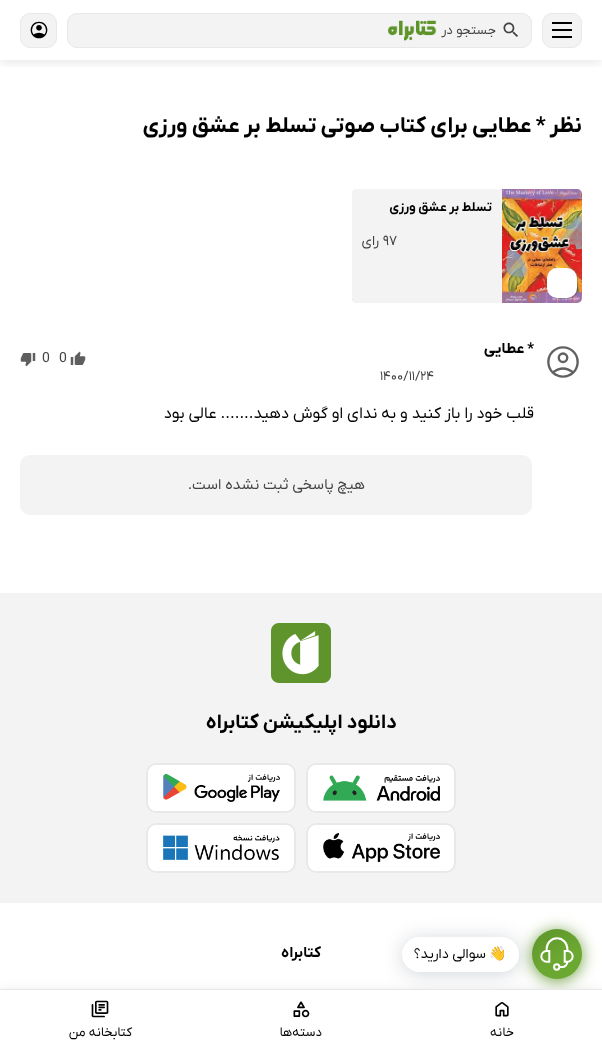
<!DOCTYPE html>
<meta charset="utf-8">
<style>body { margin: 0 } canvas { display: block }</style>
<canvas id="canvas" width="602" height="1049"></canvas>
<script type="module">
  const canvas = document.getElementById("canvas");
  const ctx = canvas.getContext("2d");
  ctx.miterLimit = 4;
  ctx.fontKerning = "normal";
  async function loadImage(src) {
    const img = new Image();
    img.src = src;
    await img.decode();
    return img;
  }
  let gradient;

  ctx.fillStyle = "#ffffff";
  ctx.fillRect(0, 0, 602, 1049);
  ctx.save();
  ctx.beginPath();
  ctx.rect(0, 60, 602, 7);
  ctx.clip();
  ctx.fillStyle = "rgba(0, 0, 0, 0.1)";
  ctx.filter = "blur(6px)";
  ctx.beginPath();
  ctx.rect(0, 2, 602, 60);
  ctx.fill();
  ctx.filter = "none";
  ctx.restore();
  ctx.fillStyle = "#f3f3f4";
  ctx.beginPath();
  ctx.roundRect(542.5, 13.5, 39, 34, 9.5);
  ctx.fill();
  ctx.strokeStyle = "#e8e8e8";
  ctx.stroke();
  ctx.fillStyle = "#000000";
  ctx.fillRect(552, 22, 20, 2);
  ctx.fillRect(552, 29, 20, 2);
  ctx.fillRect(552, 36, 20, 2);
  ctx.fillStyle = "#f3f3f4";
  ctx.beginPath();
  ctx.roundRect(67.5, 13.5, 464, 34, 9.5);
  ctx.fill();
  ctx.stroke();
  ctx.drawImage(await loadImage("img1.png"), 503, 22, 15, 15);
  ctx.direction = "rtl";
  ctx.font = "13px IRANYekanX";
  ctx.fillStyle = "#424242";
  ctx.fillText("جستجو در", 496, 34);
  ctx.drawImage(await loadImage("img2.png"), 387, 20, 50, 21);
  ctx.fillStyle = "#f3f3f4";
  ctx.beginPath();
  ctx.roundRect(20.5, 13.5, 36, 34, 9.5);
  ctx.fill();
  ctx.stroke();
  ctx.drawImage(await loadImage("img3.png"), 30, 21, 18, 18);
  ctx.font = "bold 22px IRANYekanX";
  ctx.fillStyle = "#000000";
  ctx.fillText("نظر * عطایی برای کتاب صوتی تسلط بر عشق ورزی", 582, 132);
  ctx.fillStyle = "rgba(0, 0, 0, 0.2)";
  ctx.filter = "blur(0.5px)";
  ctx.beginPath();
  ctx.roundRect(352, 189, 230, 114, 5);
  ctx.fill();
  ctx.filter = "none";
  ctx.fillStyle = "#f3f3f4";
  ctx.beginPath();
  ctx.roundRect(352, 189, 230, 114, 5);
  ctx.fill();
  ctx.fillStyle = "#f5f5f6";
  ctx.beginPath();
  ctx.moveTo(357, 190);
  ctx.lineTo(577, 190);
  ctx.bezierCurveTo(580, 190, 582, 192, 582, 195);
  ctx.lineTo(582, 194);
  ctx.bezierCurveTo(582, 191, 580, 189, 577, 189);
  ctx.lineTo(357, 189);
  ctx.bezierCurveTo(354, 189, 352, 191, 352, 194);
  ctx.lineTo(352, 195);
  ctx.bezierCurveTo(352, 192, 354, 190, 357, 190);
  ctx.closePath();
  ctx.fill();
  ctx.drawImage(await loadImage("img4.png"), 502, 189, 80, 114);
  ctx.fillStyle = "rgba(0, 0, 0, 0.2)";
  ctx.filter = "blur(0.5px)";
  ctx.beginPath();
  ctx.roundRect(548, 269, 30, 30, 10);
  ctx.fill();
  ctx.filter = "none";
  ctx.fillStyle = "#ffffff";
  ctx.beginPath();
  ctx.roundRect(547, 268, 30, 30, 10);
  ctx.fill();
  ctx.font = "bold 13px IRANYekanX";
  ctx.fillStyle = "#000000";
  ctx.fillText("تسلط بر عشق ورزی", 492, 211);
  ctx.direction = "ltr";
  ctx.font = "14px IRANYekanX";
  ctx.fillStyle = "#424242";
  ctx.fillText("۹۷", 383, 245);
  ctx.direction = "rtl";
  ctx.fillText("رای", 379, 245);
  ctx.drawImage(await loadImage("img5.png"), 547, 346, 32, 32);
  ctx.font = "bold 15px IRANYekanX";
  ctx.fillStyle = "#000000";
  ctx.fillText("* عطایی", 534, 353);
  ctx.direction = "ltr";
  ctx.font = "13px IRANYekanX";
  ctx.fillStyle = "#424242";
  ctx.fillText("۱۴۰۰/۱۱/۲۴", 380, 380);
  ctx.drawImage(await loadImage("img6.png"), 70, 351, 16, 14);
  ctx.font = "14px IRANYekanX";
  ctx.fillText("0", 59, 362);
  ctx.drawImage(await loadImage("img7.png"), 20, 353, 16, 14);
  ctx.fillText("0", 42, 362);
  ctx.direction = "rtl";
  ctx.font = "16px IRANYekanX";
  ctx.fillStyle = "#000000";
  ctx.fillText("قلب خود را باز کنید و به ندای او گوش دهید....... عالی بود", 534, 418);
  ctx.fillStyle = "#f3f3f4";
  ctx.beginPath();
  ctx.roundRect(20, 455, 512, 60, 10);
  ctx.fill();
  ctx.font = "15px IRANYekanX";
  ctx.fillStyle = "#424242";
  ctx.fillText("هیچ پاسخی ثبت نشده است.", 365, 489);
  ctx.fillStyle = "rgba(94, 148, 43, 0.9)";
  ctx.filter = "blur(8px)";
  ctx.beginPath();
  ctx.roundRect(532, 931, 50, 50, 25);
  ctx.fill();
  ctx.filter = "none";
  gradient = ctx.createLinearGradient(542, 924, 572, 984);
  gradient.addColorStop(0, "#5e942b");
  gradient.addColorStop(0.58, "#6ba831");
  ctx.fillStyle = gradient;
  ctx.beginPath();
  ctx.arc(557, 954, 25, 0, Math.PI * 2);
  ctx.fill();
  ctx.fillStyle = "rgba(0, 18, 46, 0.18)";
  ctx.filter = "blur(10px)";
  ctx.beginPath();
  ctx.roundRect(402, 939, 117, 35, 17.5);
  ctx.fill();
  ctx.filter = "none";
  ctx.drawImage(await loadImage("img8.png"), 540, 937, 34, 34);
  ctx.fillStyle = "#ffffff";
  ctx.beginPath();
  ctx.roundRect(402, 937, 117, 35, 17.5);
  ctx.fill();
  ctx.font = "14px Noto Color Emoji";
  ctx.fillStyle = "#000000";
  ctx.fillText("👋", 507, 958);
  ctx.font = "14px IRANYekanX";
  ctx.fillText("سوالی دارید؟", 486, 958);
  ctx.fillStyle = "rgba(0, 0, 0, 0.1)";
  ctx.filter = "blur(6px)";
  ctx.beginPath();
  ctx.rect(0, 991, 602, 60);
  ctx.fill();
  ctx.filter = "none";
  ctx.fillStyle = "#ffffff";
  ctx.fillRect(0, 990, 602, 59);
  ctx.fillStyle = "#e8e8e8";
  ctx.fillRect(0, 989, 602, 1);
  ctx.drawImage(await loadImage("img9.png"), 495, 1002, 14, 15);
  ctx.font = "13px IRANYekanX";
  ctx.fillStyle = "#000000";
  ctx.fillText("خانه", 514, 1036);
  ctx.drawImage(await loadImage("img10.png"), 293, 1001, 17, 17);
  ctx.fillText("دسته‌ها", 322, 1036);
  ctx.drawImage(await loadImage("img11.png"), 91, 1000, 18, 18);
  ctx.fillText("کتابخانه من", 132, 1036);
  ctx.fillStyle = "#f3f3f4";
  ctx.fillRect(0, 593, 602, 310);
  ctx.drawImage(await loadImage("img12.png"), 271, 623, 60, 60);
  ctx.font = "bold 20px IRANYekanX";
  ctx.fillStyle = "#000000";
  ctx.fillText("دانلود اپلیکیشن کتابراه", 397, 728);
  ctx.fillStyle = "#ffffff";
  ctx.beginPath();
  ctx.roundRect(306, 763, 150, 50, 10);
  ctx.fill();
  ctx.drawImage(await loadImage("img13.png"), 323, 775, 117, 26);
  ctx.beginPath();
  ctx.roundRect(307, 764, 148, 48, 9);
  ctx.lineWidth = 2;
  ctx.stroke();
  ctx.beginPath();
  ctx.roundRect(146, 763, 150, 50, 10);
  ctx.fill();
  ctx.drawImage(await loadImage("img14.png"), 163, 774, 117, 28);
  ctx.beginPath();
  ctx.roundRect(147, 764, 148, 48, 9);
  ctx.stroke();
  ctx.beginPath();
  ctx.roundRect(306, 823, 150, 50, 10);
  ctx.fill();
  ctx.drawImage(await loadImage("img15.png"), 323, 833, 117, 29);
  ctx.beginPath();
  ctx.roundRect(307, 824, 148, 48, 9);
  ctx.stroke();
  ctx.beginPath();
  ctx.roundRect(146, 823, 150, 50, 10);
  ctx.fill();
  ctx.drawImage(await loadImage("img16.png"), 163, 835, 117, 25);
  ctx.beginPath();
  ctx.roundRect(147, 824, 148, 48, 9);
  ctx.stroke();
  ctx.font = "bold 15px IRANYekanX";
  ctx.fillStyle = "#000000";
  ctx.fillText("کتابراه", 321, 957);
</script>
